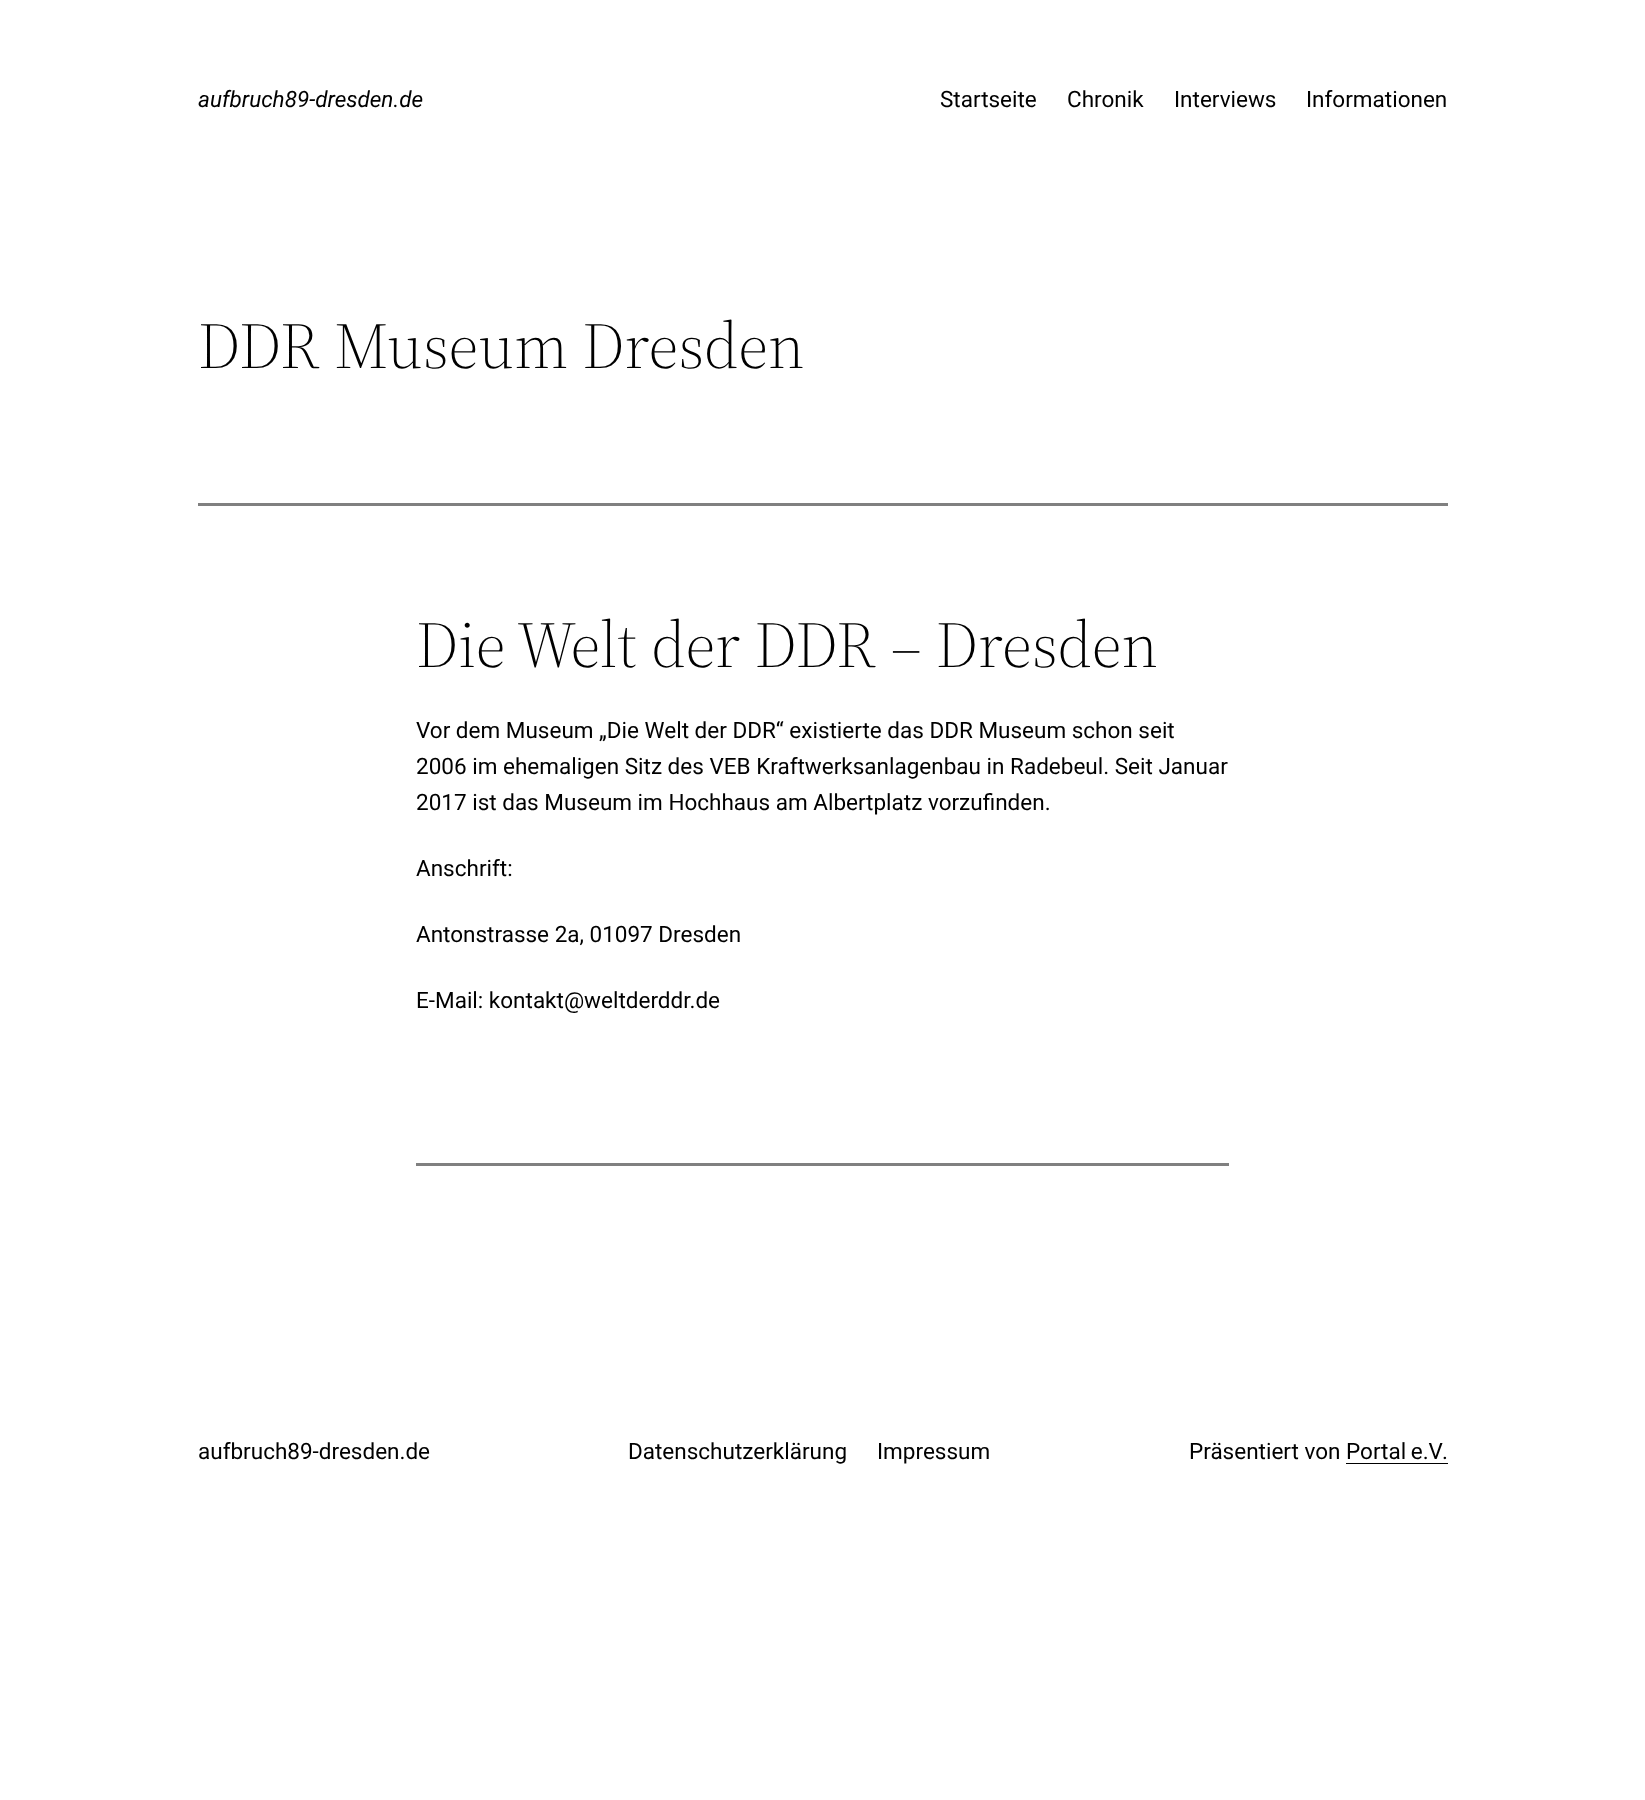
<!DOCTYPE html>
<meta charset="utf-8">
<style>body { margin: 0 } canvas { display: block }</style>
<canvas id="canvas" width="1645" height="1800"></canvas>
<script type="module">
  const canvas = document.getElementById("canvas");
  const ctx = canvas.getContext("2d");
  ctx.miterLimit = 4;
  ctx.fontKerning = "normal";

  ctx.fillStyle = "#ffffff";
  ctx.fillRect(0, 0, 1645, 1800);
  ctx.font = "italic 22.5px Roboto";
  ctx.fillStyle = "#000000";
  ctx.fillText("aufbruch89-dresden.de", 198, 107);
  ctx.font = "22.5px Roboto";
  ctx.fillText("Startseite", 940, 107);
  ctx.fillText("Chronik", 1067, 107);
  ctx.fillText("Interviews", 1174, 107);
  ctx.fillText("Informationen", 1306, 107);
  ctx.font = "300 65px 'Source Serif 4'";
  ctx.fillText("DDR Museum Dresden", 198, 368);
  ctx.fillStyle = "#808080";
  ctx.fillRect(198, 503, 1250, 3);
  ctx.fillStyle = "#000000";
  ctx.fillText("Die Welt der DDR – Dresden", 416, 667);
  ctx.font = "22.5px Roboto";
  ctx.fillText("Vor dem Museum „Die Welt der DDR“ existierte das DDR Museum schon seit", 416, 738);
  ctx.fillText("2006 im ehemaligen Sitz des VEB Kraftwerksanlagenbau in Radebeul. Seit Januar", 416, 774);
  ctx.fillText("2017 ist das Museum im Hochhaus am Albertplatz vorzufinden.", 416, 810);
  ctx.fillText("Anschrift:", 416, 876);
  ctx.fillText("Antonstrasse 2a, 01097 Dresden", 416, 942);
  ctx.fillText("E-Mail: kontakt@weltderddr.de", 416, 1008);
  ctx.fillStyle = "#808080";
  ctx.fillRect(416, 1163, 813, 3);
  ctx.fillStyle = "#000000";
  ctx.fillText("aufbruch89-dresden.de", 198, 1459);
  ctx.fillText("Datenschutzerklärung", 628, 1459);
  ctx.fillText("Impressum", 877, 1459);
  ctx.fillText("Präsentiert von", 1189, 1459);
  ctx.wordSpacing = "-1px";
  ctx.fillText("Portal e.V", 1346, 1459);
  ctx.fillRect(1346, 1463, 102, 1);
  ctx.wordSpacing = "0px";
  ctx.fillText(".", 1442, 1459);
</script>
